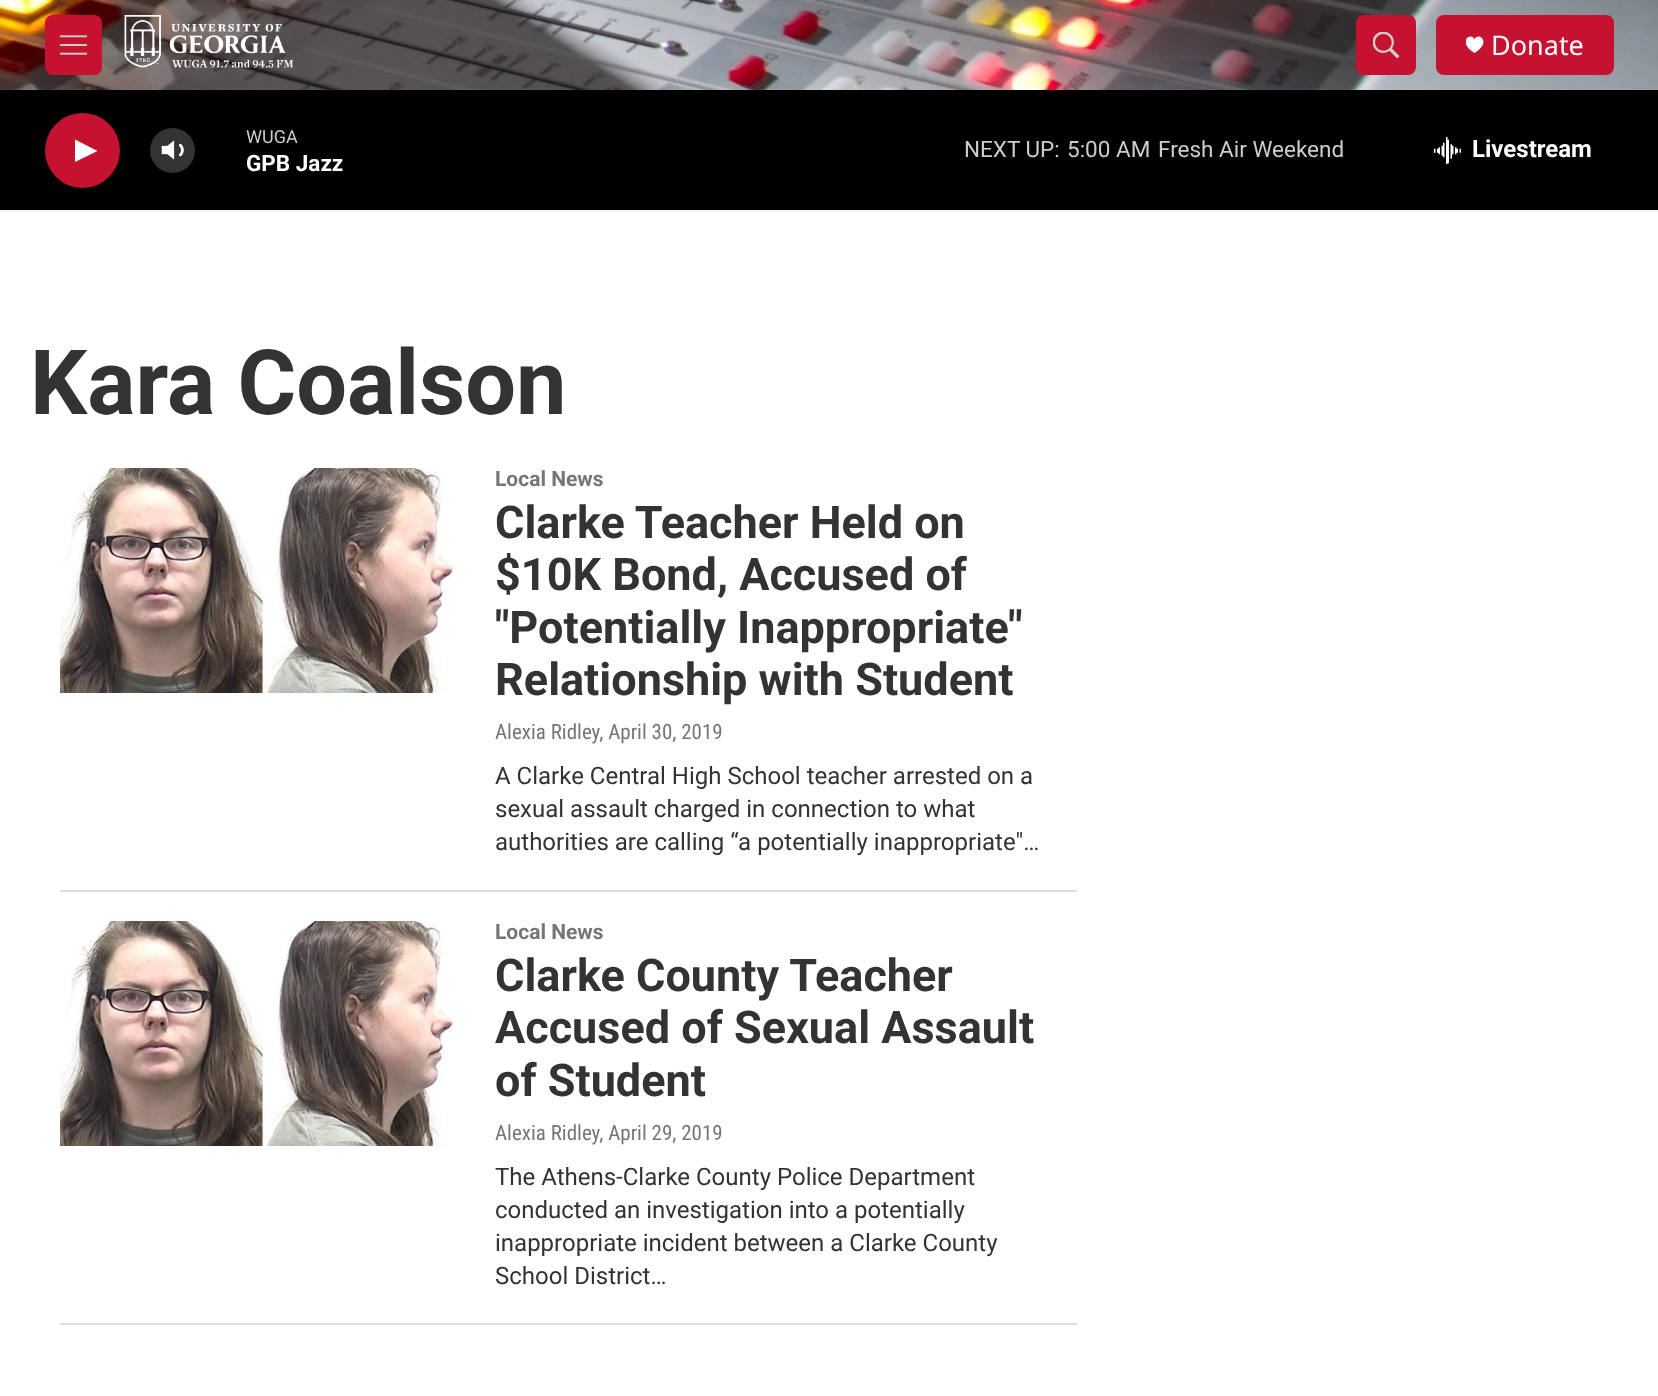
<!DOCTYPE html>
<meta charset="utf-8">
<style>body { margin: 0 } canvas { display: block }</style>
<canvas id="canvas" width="1658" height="1396"></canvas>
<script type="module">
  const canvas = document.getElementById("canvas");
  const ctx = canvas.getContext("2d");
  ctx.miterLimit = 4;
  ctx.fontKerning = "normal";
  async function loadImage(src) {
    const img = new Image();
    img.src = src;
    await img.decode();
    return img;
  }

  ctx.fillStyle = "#ffffff";
  ctx.fillRect(0, 0, 1658, 1396);
  ctx.fillStyle = "#f5f5f5";
  ctx.fillRect(0, 210, 1658, 2);
  ctx.drawImage(await loadImage("img1.png"), 0, 0, 1658, 90);
  ctx.fillStyle = "#c41230";
  ctx.beginPath();
  ctx.roundRect(45, 15, 57, 60, 8);
  ctx.fill();
  ctx.drawImage(await loadImage("img2.png"), 60, 35, 27, 20);
  ctx.drawImage(await loadImage("img3.png"), 124, 15, 170, 53);
  ctx.beginPath();
  ctx.roundRect(1356, 15, 60, 60, 8);
  ctx.fill();
  ctx.drawImage(await loadImage("img4.png"), 1373, 32, 27, 27);
  ctx.beginPath();
  ctx.roundRect(1436, 15, 178, 60, 8);
  ctx.fill();
  ctx.save();
  ctx.beginPath();
  ctx.rect(1466, 36, 18, 18);
  ctx.clip();
  ctx.fillStyle = "#ffffff";
  ctx.beginPath();
  ctx.moveTo(1474.5, 39.5);
  ctx.bezierCurveTo(1471.5, 31.5, 1456, 41.5, 1474.5, 53);
  ctx.bezierCurveTo(1493, 41.5, 1477.5, 31.5, 1474.5, 39.5);
  ctx.closePath();
  ctx.fill();
  ctx.restore();
  ctx.font = "27px Noto Sans";
  ctx.fillStyle = "#ffffff";
  ctx.fillText("Donate", 1491, 55);
  ctx.fillStyle = "#000000";
  ctx.fillRect(0, 90, 1658, 120);
  ctx.fillStyle = "#c41230";
  ctx.beginPath();
  ctx.arc(82.5, 150.5, 37.5, 0, Math.PI * 2);
  ctx.fill();
  ctx.fillStyle = "#ffffff";
  ctx.beginPath();
  ctx.moveTo(75, 139.5);
  ctx.lineTo(97.5, 151);
  ctx.lineTo(75, 162);
  ctx.closePath();
  ctx.fill();
  ctx.drawImage(await loadImage("img5.png"), 161, 140, 23, 20);
  ctx.fillStyle = "rgba(255, 255, 255, 0.2)";
  ctx.beginPath();
  ctx.arc(172.5, 150.5, 22.5, 0, Math.PI * 2);
  ctx.fill();
  ctx.font = "18px Roboto";
  ctx.fillStyle = "#cccccc";
  ctx.fillText("WUGA", 246, 143);
  ctx.font = "bold 22.5px 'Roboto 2'";
  ctx.fillStyle = "#ffffff";
  ctx.fillText("GPB Jazz", 246, 171);
  ctx.font = "22.5px Roboto";
  ctx.fillStyle = "#cccccc";
  ctx.fillText("NEXT UP:", 964, 157);
  ctx.fillText("5:00 AM", 1067, 157);
  ctx.fillText("Fresh Air Weekend", 1158, 157);
  ctx.drawImage(await loadImage("img6.png"), 1434, 137, 27, 27);
  ctx.font = "bold 24px 'Roboto 2'";
  ctx.fillStyle = "#ffffff";
  ctx.fillText("Livestream", 1472, 157);
  ctx.font = "bold 90px Roboto";
  ctx.fillStyle = "#333333";
  ctx.fillText("Kara Coalson", 30, 414);
  ctx.fillStyle = "#dcdcdc";
  ctx.fillRect(60, 890, 1017, 2);
  ctx.drawImage(await loadImage("img7.png"), 60, 468, 394, 225);
  ctx.font = "bold 21px Roboto";
  ctx.fillStyle = "#767676";
  ctx.fillText("Local News", 495, 486);
  ctx.font = "bold 45px Roboto";
  ctx.fillStyle = "#333333";
  ctx.fillText("Clarke Teacher Held on", 495, 538);
  ctx.fillText("$10K Bond, Accused of", 495, 590);
  ctx.fillText("\"Potentially Inappropriate\"", 495, 643);
  ctx.fillText("Relationship with Student", 495, 695);
  ctx.font = "21px Roboto Condensed";
  ctx.fillStyle = "#767676";
  ctx.fillText("Alexia Ridley, April 30, 2019", 495, 739);
  ctx.font = "24px Roboto";
  ctx.fillStyle = "#333333";
  ctx.fillText("A Clarke Central High School teacher arrested on a", 495, 784);
  ctx.fillText("sexual assault charged in connection to what", 495, 817);
  ctx.fillText("authorities are calling “a potentially inappropriate\"…", 495, 850);
  ctx.fillStyle = "#dcdcdc";
  ctx.fillRect(60, 1323, 1017, 2);
  ctx.drawImage(await loadImage("img7.png"), 60, 921, 394, 225);
  ctx.font = "bold 21px Roboto";
  ctx.fillStyle = "#767676";
  ctx.fillText("Local News", 495, 939);
  ctx.font = "bold 45px Roboto";
  ctx.fillStyle = "#333333";
  ctx.fillText("Clarke County Teacher", 495, 991);
  ctx.fillText("Accused of Sexual Assault", 495, 1043);
  ctx.fillText("of Student", 495, 1096);
  ctx.font = "21px Roboto Condensed";
  ctx.fillStyle = "#767676";
  ctx.fillText("Alexia Ridley, April 29, 2019", 495, 1140);
  ctx.font = "24px Roboto";
  ctx.fillStyle = "#333333";
  ctx.fillText("The Athens-Clarke County Police Department", 495, 1185);
  ctx.fillText("conducted an investigation into a potentially", 495, 1218);
  ctx.fillText("inappropriate incident between a Clarke County", 495, 1251);
  ctx.fillText("School District…", 495, 1284);
</script>
